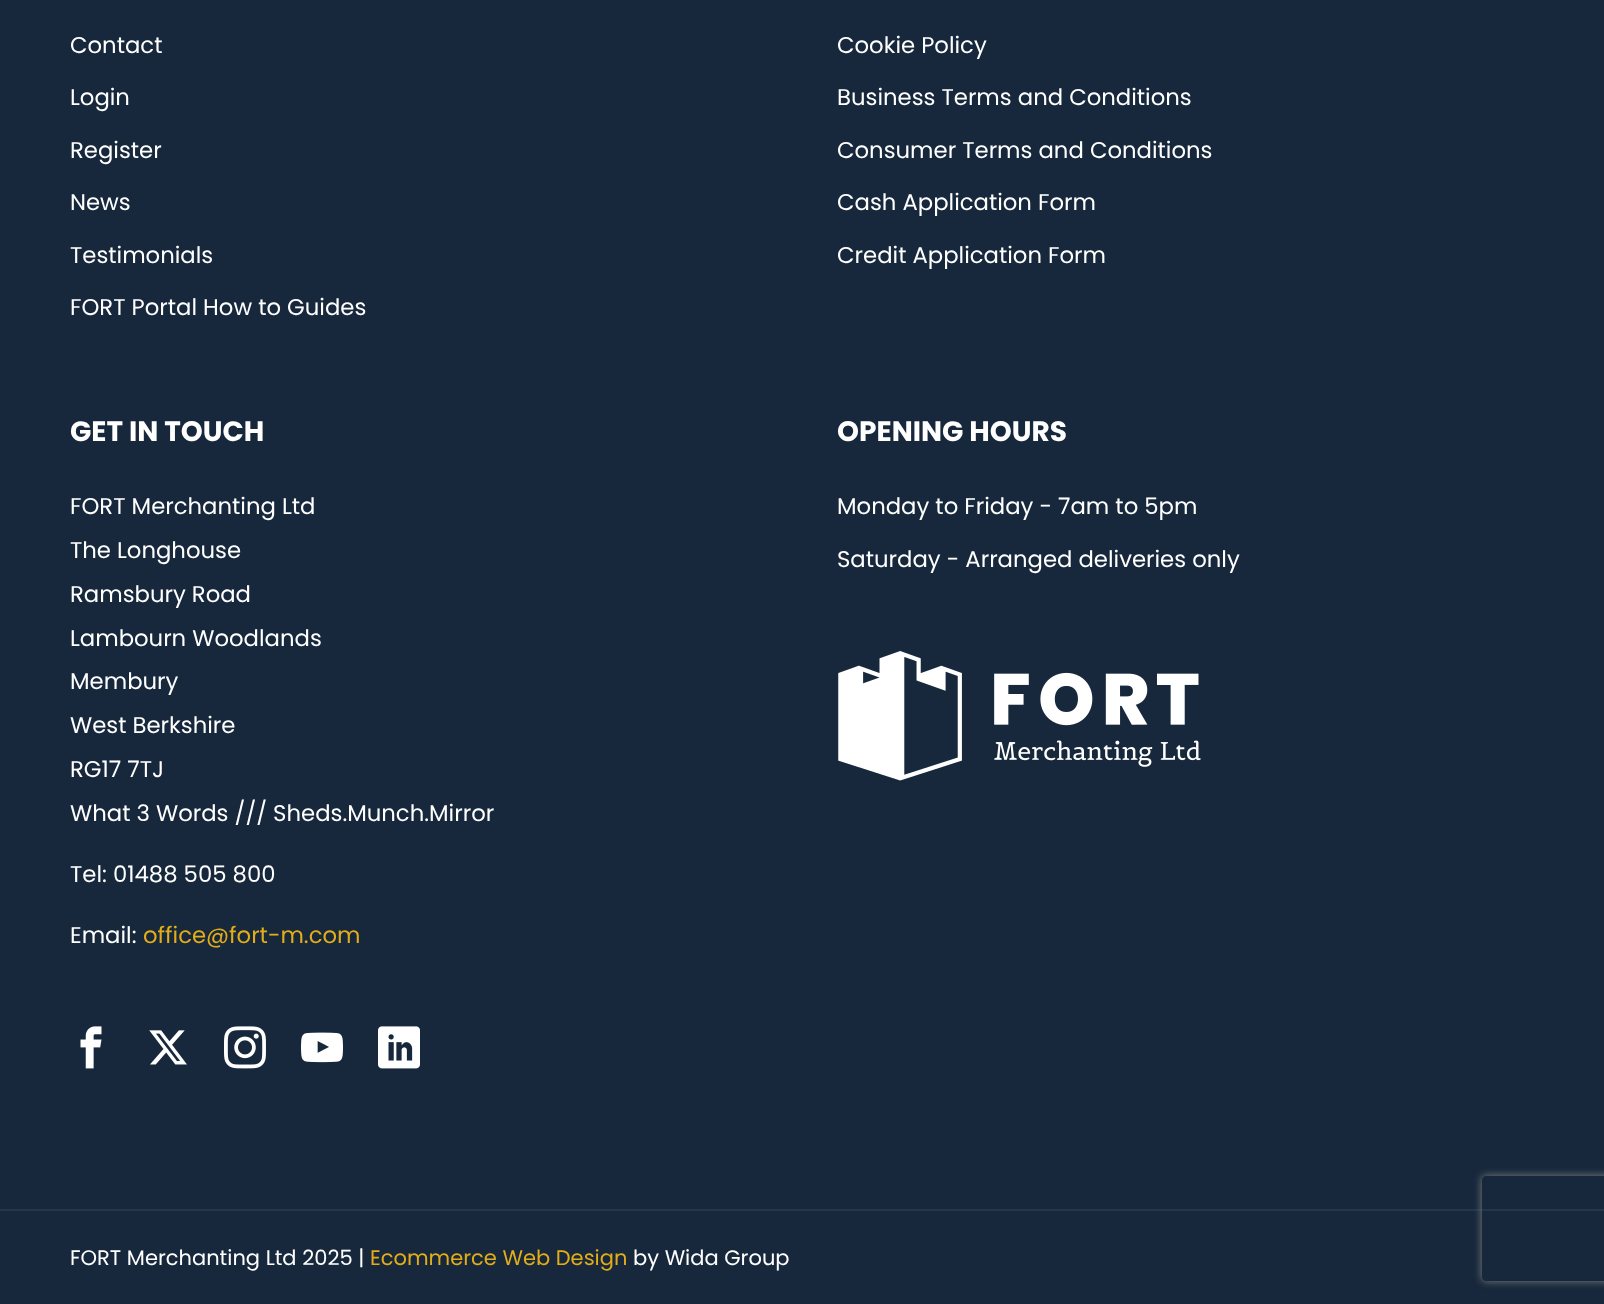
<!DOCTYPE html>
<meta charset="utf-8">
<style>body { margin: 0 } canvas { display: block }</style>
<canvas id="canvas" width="1604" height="1304"></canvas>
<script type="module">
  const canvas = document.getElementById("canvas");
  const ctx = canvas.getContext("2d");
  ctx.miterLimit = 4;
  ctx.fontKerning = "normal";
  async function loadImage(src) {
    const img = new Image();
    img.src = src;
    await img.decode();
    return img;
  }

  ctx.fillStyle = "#17283c";
  ctx.fillRect(0, 0, 1604, 1304);
  ctx.font = "22.75px Poppins";
  ctx.fillStyle = "#ffffff";
  ctx.fillText("Contact", 70, 53);
  ctx.fillText("Login", 70, 105);
  ctx.fillText("Register", 70, 158);
  ctx.fillText("News", 70, 210);
  ctx.fillText("Testimonials", 70, 263);
  ctx.fillText("FORT Portal How to Guides", 70, 315);
  ctx.fillText("Cookie Policy", 837, 53);
  ctx.fillText("Business Terms and Conditions", 837, 105);
  ctx.fillText("Consumer Terms and Conditions", 837, 158);
  ctx.fillText("Cash Application Form", 837, 210);
  ctx.fillText("Credit Application Form", 837, 263);
  ctx.font = "bold 28px Poppins";
  ctx.fillText("GET IN TOUCH", 70, 441);
  ctx.font = "22.75px Poppins";
  ctx.fillText("FORT Merchanting Ltd", 70, 514);
  ctx.fillText("The Longhouse", 70, 558);
  ctx.fillText("Ramsbury Road", 70, 602);
  ctx.fillText("Lambourn Woodlands", 70, 646);
  ctx.fillText("Membury", 70, 689);
  ctx.fillText("West Berkshire", 70, 733);
  ctx.fillText("RG17 7TJ", 70, 777);
  ctx.fillText("What 3 Words /// Sheds.Munch.Mirror", 70, 821);
  ctx.fillText("Tel: 01488 505 800", 70, 882);
  ctx.fillText("Email:", 70, 943);
  ctx.fillStyle = "#e2ad19";
  ctx.fillText("office@fort-m.com", 143, 943);
  ctx.drawImage(await loadImage("img1.png"), 80, 1026, 22, 43);
  ctx.drawImage(await loadImage("img2.png"), 149, 1030, 38, 35);
  ctx.drawImage(await loadImage("img3.png"), 224, 1026, 42, 43);
  ctx.drawImage(await loadImage("img4.png"), 301, 1032, 42, 31);
  ctx.drawImage(await loadImage("img5.png"), 378, 1026, 42, 43);
  ctx.font = "bold 28px Poppins";
  ctx.fillStyle = "#ffffff";
  ctx.fillText("OPENING HOURS", 837, 441);
  ctx.font = "22.75px Poppins";
  ctx.fillText("Monday to Friday - 7am to 5pm", 837, 514);
  ctx.fillText("Saturday - Arranged deliveries only", 837, 567);
  ctx.drawImage(await loadImage("img6.png"), 838, 651, 363, 130);
  ctx.fillStyle = "#22364d";
  ctx.fillRect(0, 1209, 1604, 2);
  ctx.font = "21px Poppins";
  ctx.fillStyle = "#ffffff";
  ctx.fillText("FORT Merchanting Ltd 2025 |", 70, 1265);
  ctx.fillStyle = "#e2ad19";
  ctx.fillText("Ecommerce Web Design", 370, 1265);
  ctx.fillStyle = "#ffffff";
  ctx.fillText("by Wida Group", 633, 1265);
  ctx.save();
  ctx.beginPath();
  ctx.moveTo(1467, 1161);
  ctx.lineTo(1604, 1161);
  ctx.lineTo(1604, 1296);
  ctx.lineTo(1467, 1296);
  ctx.closePath();
  ctx.moveTo(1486, 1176);
  ctx.lineTo(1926, 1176);
  ctx.bezierCurveTo(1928, 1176, 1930, 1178, 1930, 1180);
  ctx.lineTo(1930, 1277);
  ctx.bezierCurveTo(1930, 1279, 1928, 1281, 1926, 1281);
  ctx.lineTo(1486, 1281);
  ctx.bezierCurveTo(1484, 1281, 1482, 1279, 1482, 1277);
  ctx.lineTo(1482, 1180);
  ctx.bezierCurveTo(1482, 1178, 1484, 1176, 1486, 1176);
  ctx.closePath();
  ctx.clip("evenodd");
  ctx.fillStyle = "#808080";
  ctx.filter = "blur(4.5px)";
  ctx.beginPath();
  ctx.roundRect(1482, 1176, 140, 105, 4);
  ctx.fill();
  ctx.filter = "none";
  ctx.restore();
</script>
